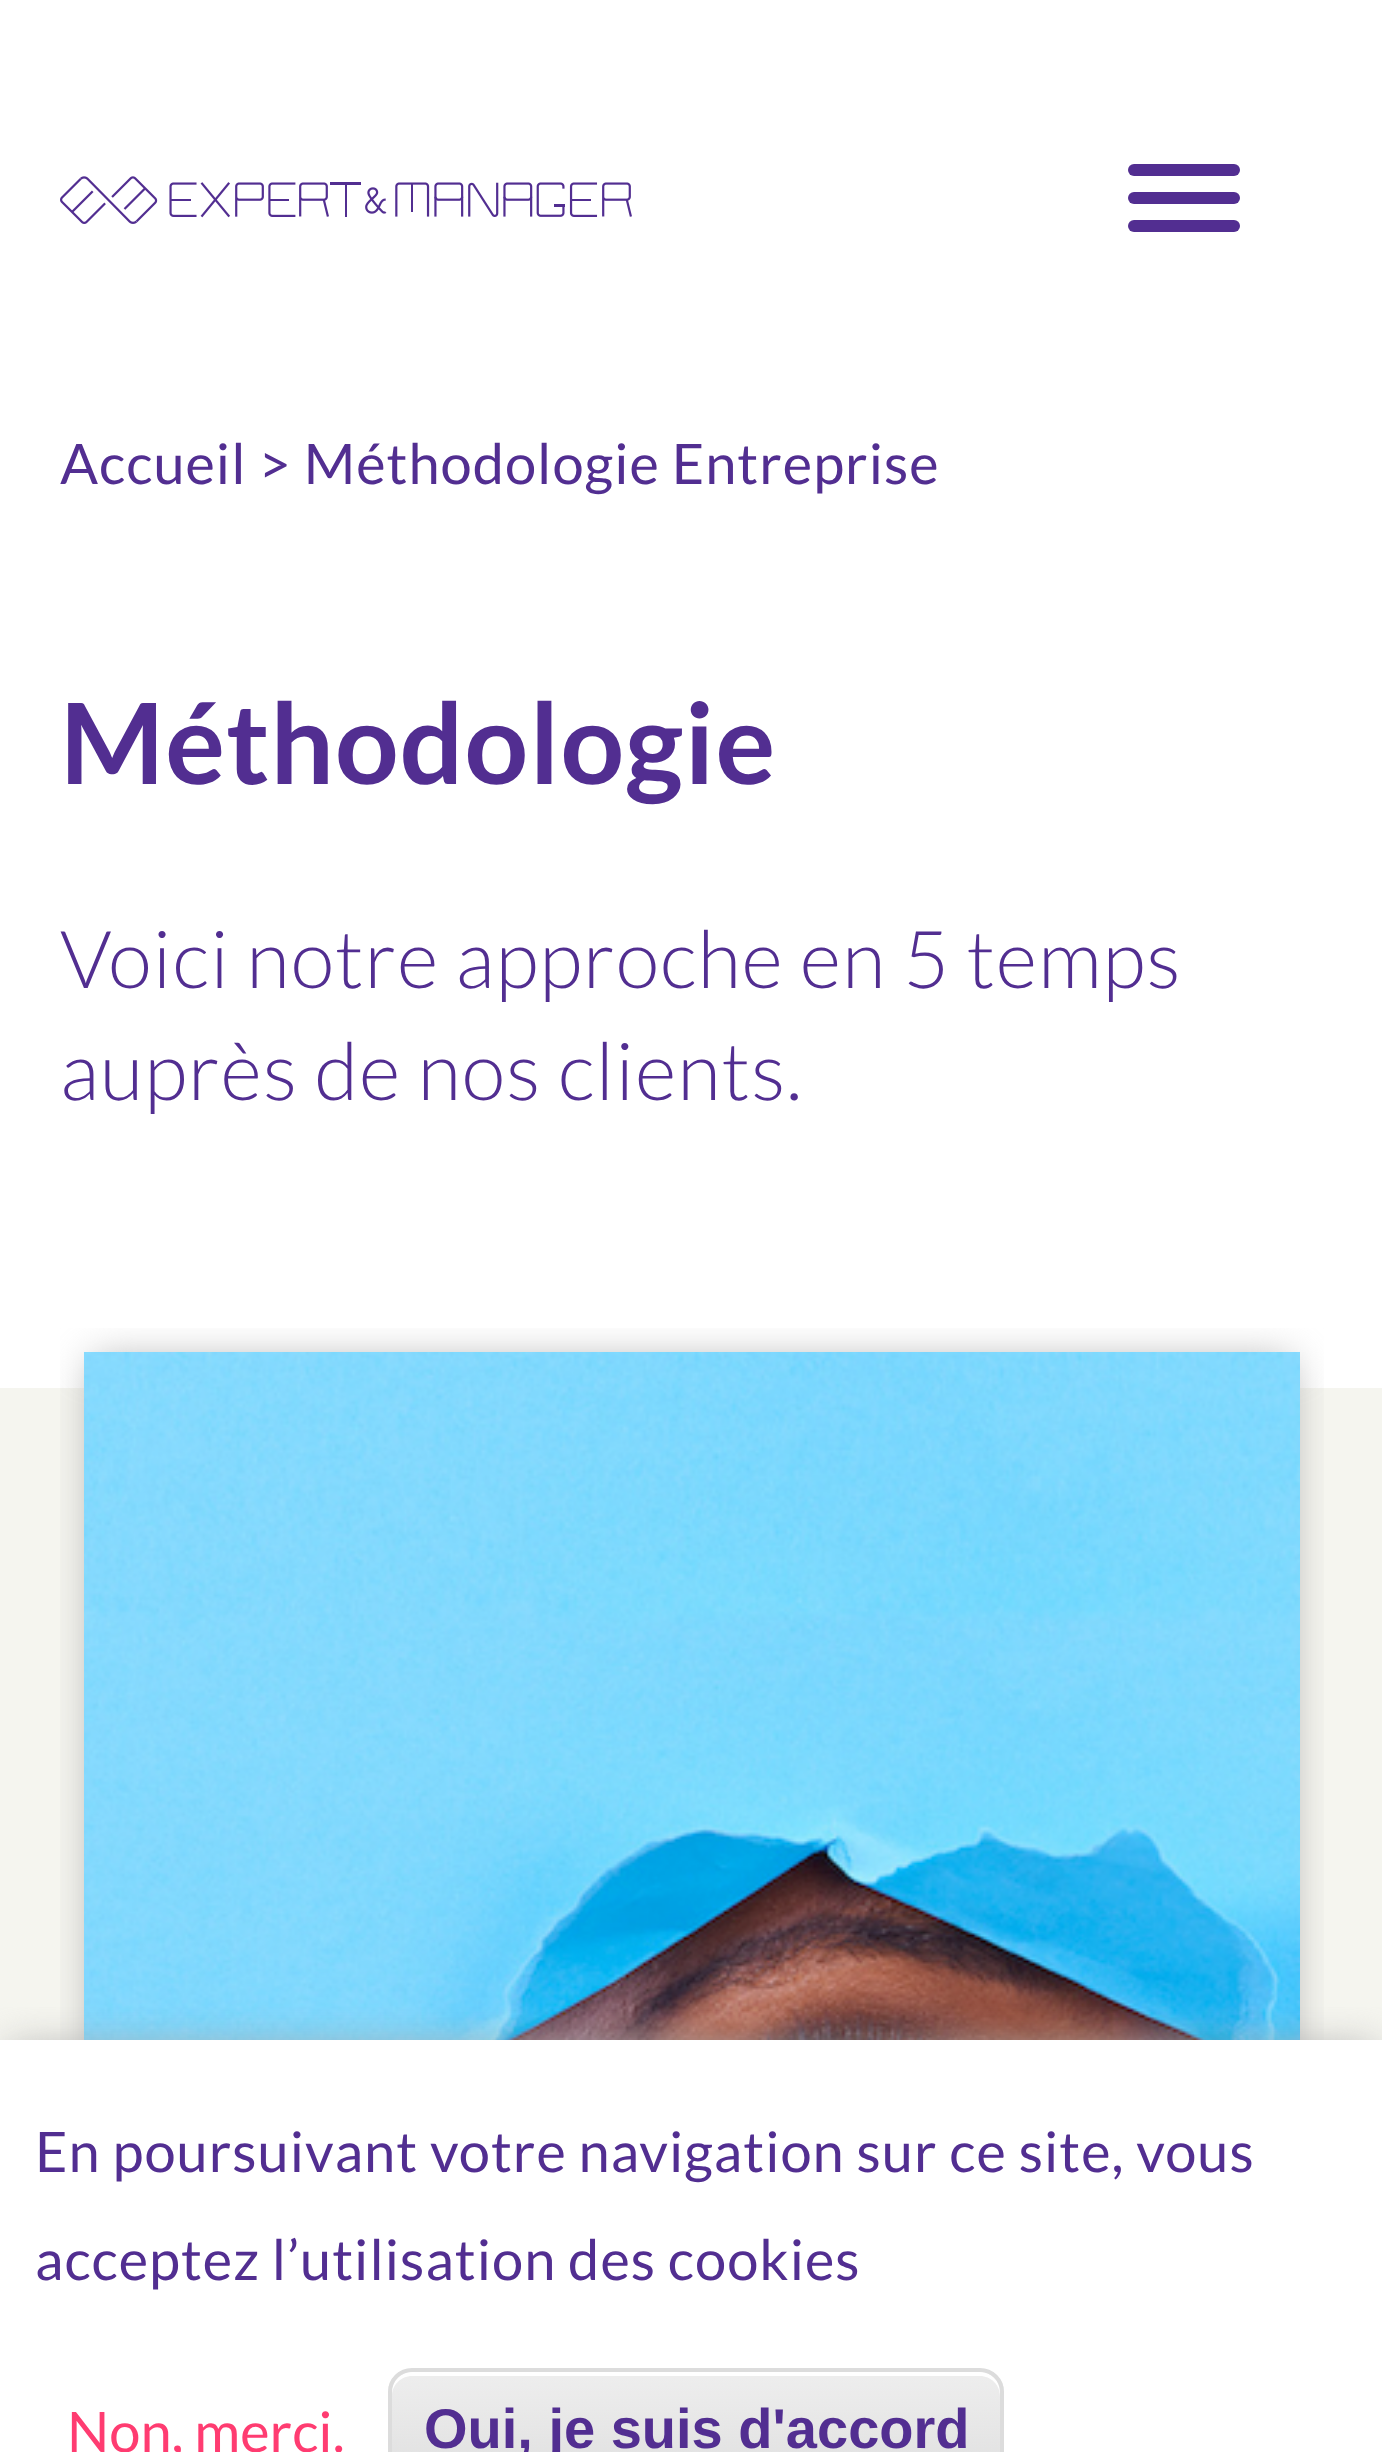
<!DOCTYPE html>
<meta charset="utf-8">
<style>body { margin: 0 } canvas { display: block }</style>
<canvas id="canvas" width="1382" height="2452"></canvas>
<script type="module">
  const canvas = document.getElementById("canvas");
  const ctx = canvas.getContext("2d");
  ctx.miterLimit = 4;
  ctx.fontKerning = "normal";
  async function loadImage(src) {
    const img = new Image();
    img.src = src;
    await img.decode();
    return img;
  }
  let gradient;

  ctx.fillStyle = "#ffffff";
  ctx.fillRect(0, 0, 1382, 2452);
  ctx.drawImage(await loadImage("img1.png"), 60, 176, 572, 48);
  ctx.fillStyle = "#522e91";
  ctx.beginPath();
  ctx.roundRect(1128, 164, 112, 12, 6);
  ctx.fill();
  ctx.beginPath();
  ctx.roundRect(1128, 192, 112, 12, 6);
  ctx.fill();
  ctx.beginPath();
  ctx.roundRect(1128, 220, 112, 12, 6);
  ctx.fill();
  ctx.letterSpacing = "1px";
  ctx.font = "56px Lato";
  ctx.fillText("Accueil > Méthodologie Entreprise", 60, 484);
  ctx.font = "bold 112px Lato";
  ctx.fillText("Méthodologie", 60, 784);
  ctx.font = "300 80px Lato";
  ctx.fillText("Voici notre approche en 5 temps", 60, 988);
  ctx.fillText("auprès de nos clients.", 60, 1100);
  ctx.fillStyle = "#f5f5ef";
  ctx.fillRect(0, 1388, 1382, 652);
  ctx.save();
  ctx.beginPath();
  ctx.rect(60, 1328, 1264, 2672);
  ctx.clip();
  ctx.fillStyle = "#adadad";
  ctx.filter = "blur(20px)";
  ctx.beginPath();
  ctx.rect(92, 1360, 1200, 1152);
  ctx.fill();
  ctx.filter = "none";
  ctx.restore();
  ctx.drawImage(await loadImage("img2.png"), 84, 1352, 1216, 688);
  ctx.fillStyle = "#ffffff";
  ctx.fillRect(60, 2040, 1264, 412);
  ctx.save();
  ctx.beginPath();
  ctx.rect(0, 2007, 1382, 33);
  ctx.clip();
  ctx.fillStyle = "#adadad";
  ctx.filter = "blur(20px)";
  ctx.beginPath();
  ctx.rect(8, 2048, 1368, 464);
  ctx.fill();
  ctx.filter = "none";
  ctx.restore();
  ctx.font = "56px Lato";
  ctx.fillStyle = "#522e91";
  ctx.fillText("En poursuivant votre navigation sur ce site, vous", 35, 2172);
  ctx.fillText("acceptez l’utilisation des cookies", 35, 2280);
  ctx.letterSpacing = "0px";
  ctx.fillStyle = "#ff3c71";
  ctx.fillText("Non, merci.", 67, 2452);
  ctx.save();
  ctx.beginPath();
  ctx.roundRect(388, 2368, 616, 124, 24);
  ctx.clip();
  gradient = ctx.createLinearGradient(696, 2372, 696, 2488);
  gradient.addColorStop(0.05, "#ededed");
  gradient.addColorStop(1, "#dfdfdf");
  ctx.fillStyle = gradient;
  ctx.fillRect(388, 2372, 616, 80);
  ctx.restore();
  ctx.fillStyle = "#ffffff";
  ctx.beginPath();
  ctx.moveTo(412, 2376);
  ctx.lineTo(980, 2376);
  ctx.bezierCurveTo(991, 2376, 1000, 2385, 1000, 2396);
  ctx.lineTo(1000, 2392);
  ctx.bezierCurveTo(1000, 2381, 991, 2372, 980, 2372);
  ctx.lineTo(412, 2372);
  ctx.bezierCurveTo(401, 2372, 392, 2381, 392, 2392);
  ctx.lineTo(392, 2396);
  ctx.bezierCurveTo(392, 2385, 401, 2376, 412, 2376);
  ctx.closePath();
  ctx.fill();
  ctx.beginPath();
  ctx.roundRect(390, 2370, 612, 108, 22);
  ctx.strokeStyle = "#dcdcdc";
  ctx.lineWidth = 4;
  ctx.stroke();
  ctx.font = "bold 56px Liberation Sans";
  ctx.fillStyle = "#522e91";
  ctx.fillText("Oui, je suis d'accord", 424, 2448);
</script>
